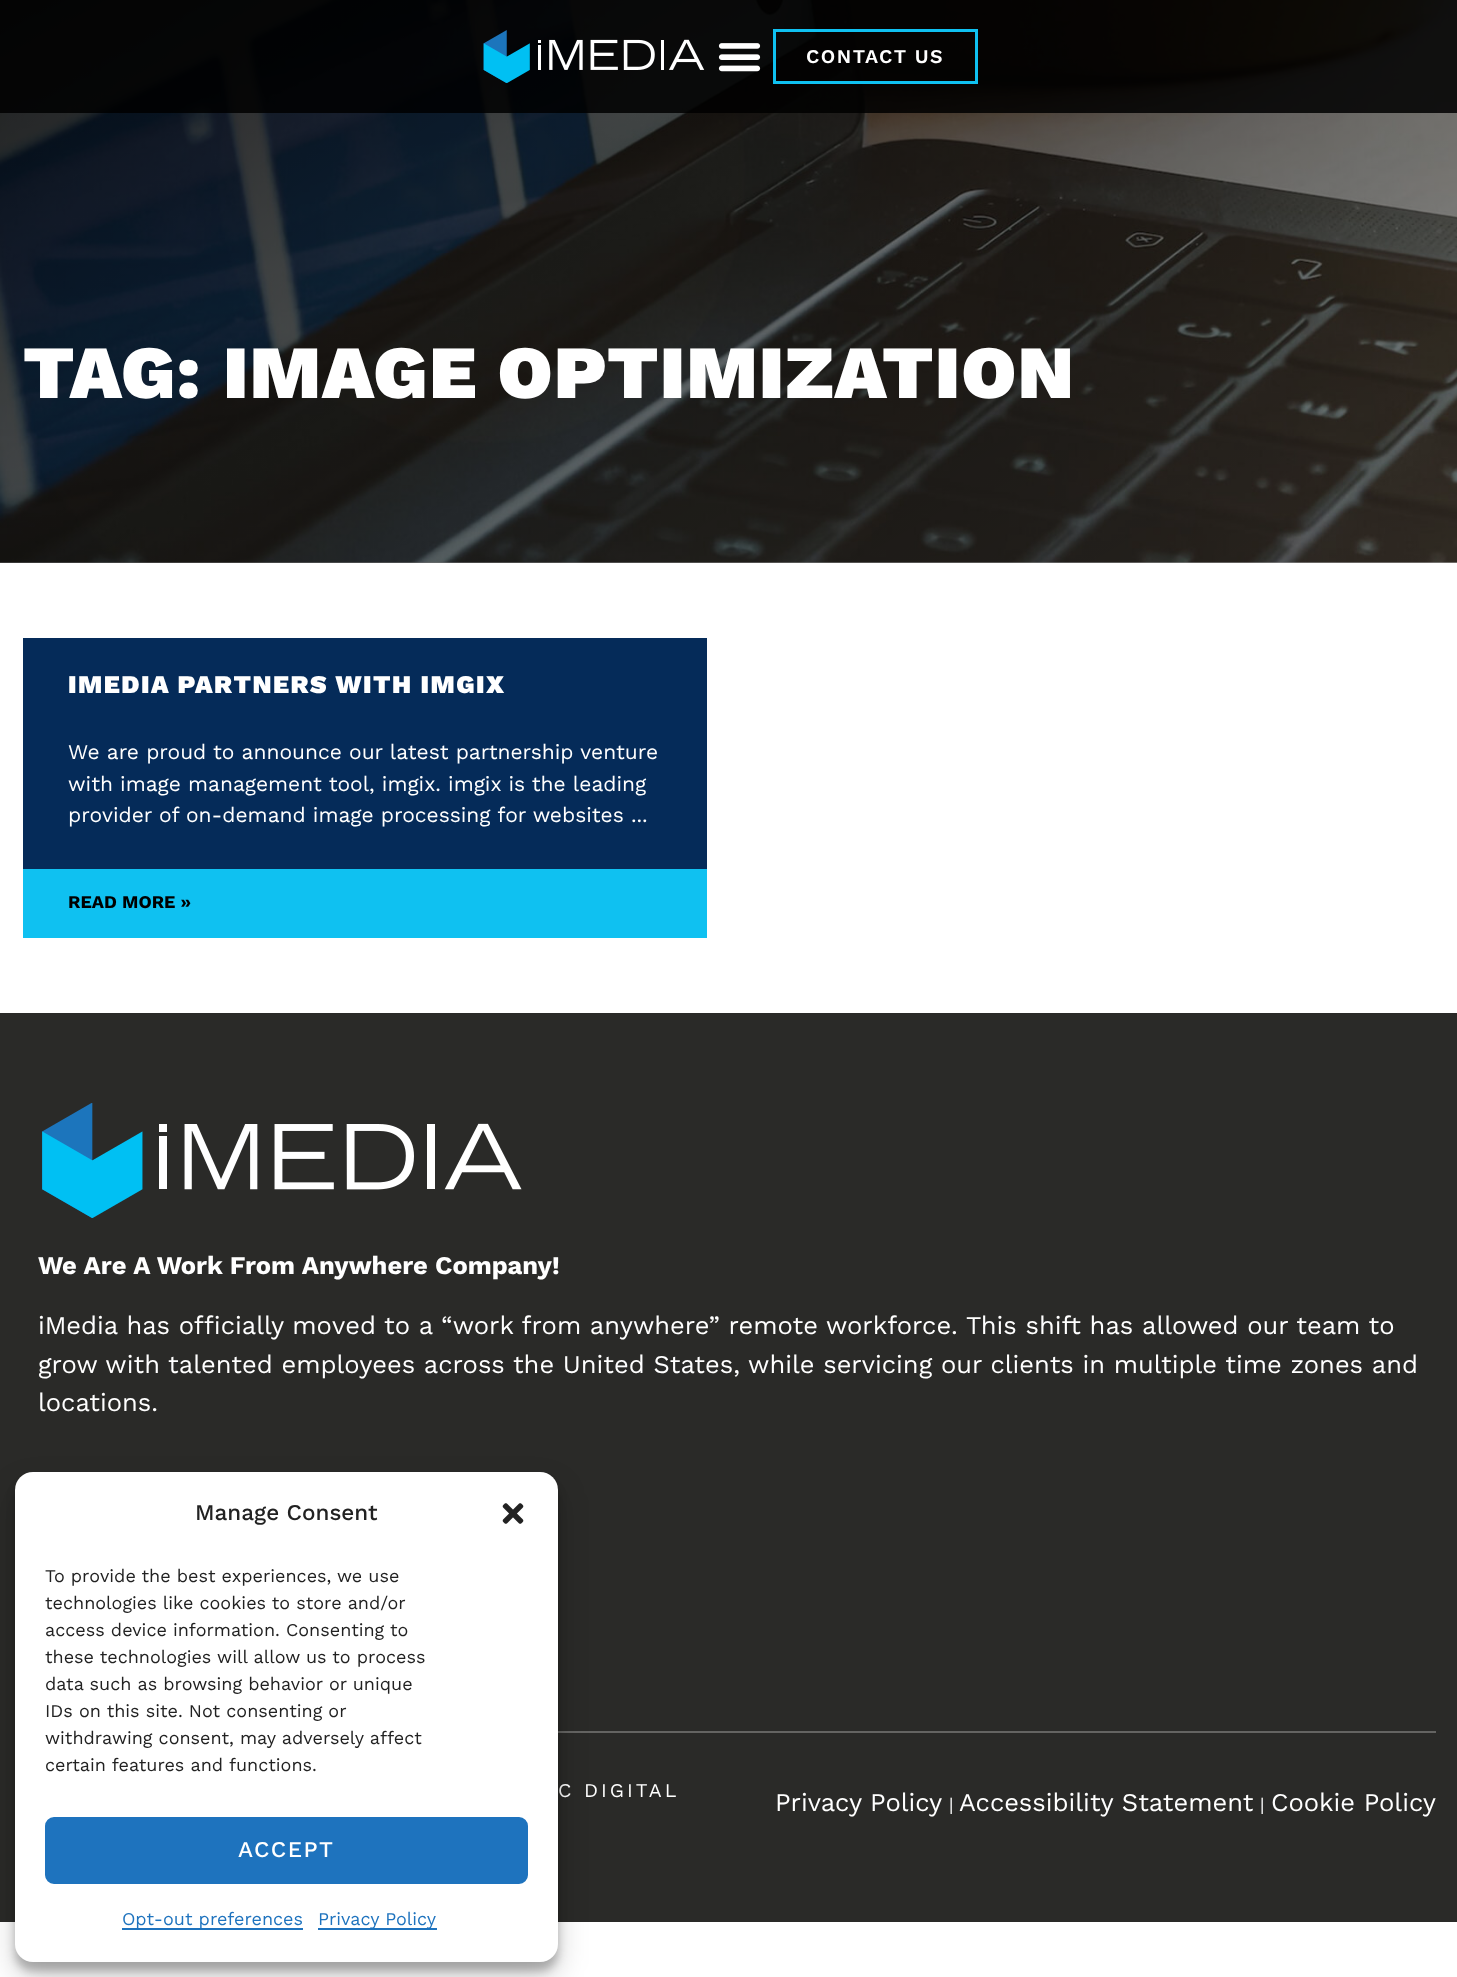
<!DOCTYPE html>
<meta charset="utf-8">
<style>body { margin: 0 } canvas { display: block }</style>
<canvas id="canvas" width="1457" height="1977"></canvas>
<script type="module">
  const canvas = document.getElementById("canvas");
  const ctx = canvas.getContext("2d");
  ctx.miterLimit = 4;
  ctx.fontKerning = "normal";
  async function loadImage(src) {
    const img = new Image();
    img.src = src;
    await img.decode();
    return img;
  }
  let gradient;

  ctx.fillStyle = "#ffffff";
  ctx.fillRect(0, 0, 1457, 1977);
  ctx.drawImage(await loadImage("img3.png"), 0, 0, 1457, 563);
  gradient = ctx.createLinearGradient(425, -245, 1033, 808);
  gradient.addColorStop(0, "rgba(0, 0, 0, 0.85)");
  gradient.addColorStop(1, "rgba(0, 0, 0, 0.32)");
  ctx.fillStyle = gradient;
  ctx.fillRect(0, 0, 1457, 563);
  ctx.fillStyle = "rgba(0, 0, 0, 0.85)";
  ctx.fillRect(0, 0, 1457, 113);
  ctx.drawImage(await loadImage("img1.png"), 483, 30, 222, 53);
  ctx.drawImage(await loadImage("img2.png"), 718, 43, 43, 29);
  ctx.strokeStyle = "#0fc1f1";
  ctx.lineWidth = 3;
  ctx.strokeRect(774.5, 30.5, 202, 52);
  ctx.letterSpacing = "1.5px";
  ctx.font = "600 19.5px Work Sans";
  ctx.fillStyle = "#ffffff";
  ctx.fillText("CONTACT US", 806, 63);
  ctx.font = "900 75px Work Sans";
  ctx.fillText("TAG: IMAGE OPTIMIZATION", 23, 398);
  ctx.fillStyle = "#052b59";
  ctx.fillRect(23, 638, 684, 231);
  ctx.font = "900 25.5px Work Sans";
  ctx.fillStyle = "#ffffff";
  ctx.fillText("IMEDIA PARTNERS WITH IMGIX", 68, 693);
  ctx.letterSpacing = "0px";
  ctx.font = "21px Work Sans";
  ctx.fillText("We are proud to announce our latest partnership venture", 68, 759);
  ctx.fillText("with image management tool, imgix. imgix is the leading", 68, 791);
  ctx.fillText("provider of on-demand image processing for websites ...", 68, 822);
  ctx.fillStyle = "#0fc1f1";
  ctx.fillRect(23, 869, 684, 69);
  ctx.font = "bold 18px Work Sans";
  ctx.fillStyle = "#000000";
  ctx.fillText("READ MORE »", 68, 908);
  ctx.fillStyle = "#2a2a28";
  ctx.fillRect(0, 1013, 1457, 909);
  ctx.drawImage(await loadImage("img4.png"), 42, 1103, 480, 115);
  ctx.font = "bold 25.5px Work Sans";
  ctx.fillStyle = "#ffffff";
  ctx.fillText("We Are A Work From Anywhere Company!", 38, 1274);
  ctx.font = "25.5px Work Sans";
  ctx.fillText("iMedia has officially moved to a “work from anywhere” remote workforce. This shift has allowed our team to", 38, 1334);
  ctx.fillText("grow with talented employees across the United States, while servicing our clients in multiple time zones and", 38, 1373);
  ctx.fillText("locations.", 38, 1411);
  ctx.fillStyle = "#646462";
  ctx.fillRect(558, 1731, 878, 2);
  ctx.letterSpacing = "3px";
  ctx.font = "19.5px Work Sans";
  ctx.fillStyle = "#ffffff";
  ctx.fillText("C DIGITAL", 558, 1797);
  ctx.letterSpacing = "0px";
  ctx.font = "25.5px Work Sans";
  ctx.fillText("Privacy Policy", 775, 1811);
  ctx.font = "18px Work Sans";
  ctx.fillText("|", 949, 1811);
  ctx.font = "25.5px Work Sans";
  ctx.fillText("Accessibility Statement", 959, 1811);
  ctx.font = "18px Work Sans";
  ctx.fillText("|", 1260, 1811);
  ctx.font = "25.5px Work Sans";
  ctx.fillText("Cookie Policy", 1271, 1811);
  ctx.fillStyle = "rgba(0, 0, 0, 0.23)";
  ctx.filter = "blur(4.5px)";
  ctx.beginPath();
  ctx.roundRect(15, 1481, 543, 490, 18);
  ctx.fill();
  ctx.filter = "none";
  ctx.fillStyle = "rgba(0, 0, 0, 0.19)";
  ctx.filter = "blur(15px)";
  ctx.beginPath();
  ctx.roundRect(15, 1487, 543, 490, 18);
  ctx.fill();
  ctx.filter = "none";
  ctx.fillStyle = "#ffffff";
  ctx.beginPath();
  ctx.roundRect(15, 1472, 543, 490, 18);
  ctx.fill();
  ctx.font = "500 22.5px Work Sans";
  ctx.fillStyle = "#222222";
  ctx.fillText("Manage Consent", 195, 1520);
  ctx.drawImage(await loadImage("img5.png"), 502, 1503, 22, 21);
  ctx.font = "18px Work Sans";
  ctx.fillText("To provide the best experiences, we use", 45, 1582);
  ctx.fillText("technologies like cookies to store and/or", 45, 1609);
  ctx.fillText("access device information. Consenting to", 45, 1636);
  ctx.fillText("these technologies will allow us to process", 45, 1663);
  ctx.fillText("data such as browsing behavior or unique", 45, 1690);
  ctx.fillText("IDs on this site. Not consenting or", 45, 1717);
  ctx.fillText("withdrawing consent, may adversely affect", 45, 1744);
  ctx.fillText("certain features and functions.", 45, 1771);
  ctx.fillStyle = "#1e73be";
  ctx.beginPath();
  ctx.roundRect(46, 1818, 481, 65, 8);
  ctx.fill();
  ctx.strokeStyle = "#1e73be";
  ctx.lineWidth = 2;
  ctx.stroke();
  ctx.letterSpacing = "1.5px";
  ctx.font = "500 22.5px Work Sans";
  ctx.fillStyle = "#ffffff";
  ctx.fillText("ACCEPT", 238, 1857);
  ctx.fillStyle = "#1e73be";
  ctx.fillRect(122, 1928, 181, 2);
  ctx.letterSpacing = "0px";
  ctx.font = "18px Work Sans";
  ctx.fillText("Opt-out preferences", 122, 1925);
  ctx.fillRect(318, 1928, 119, 2);
  ctx.fillText("Privacy Policy", 318, 1925);
</script>
